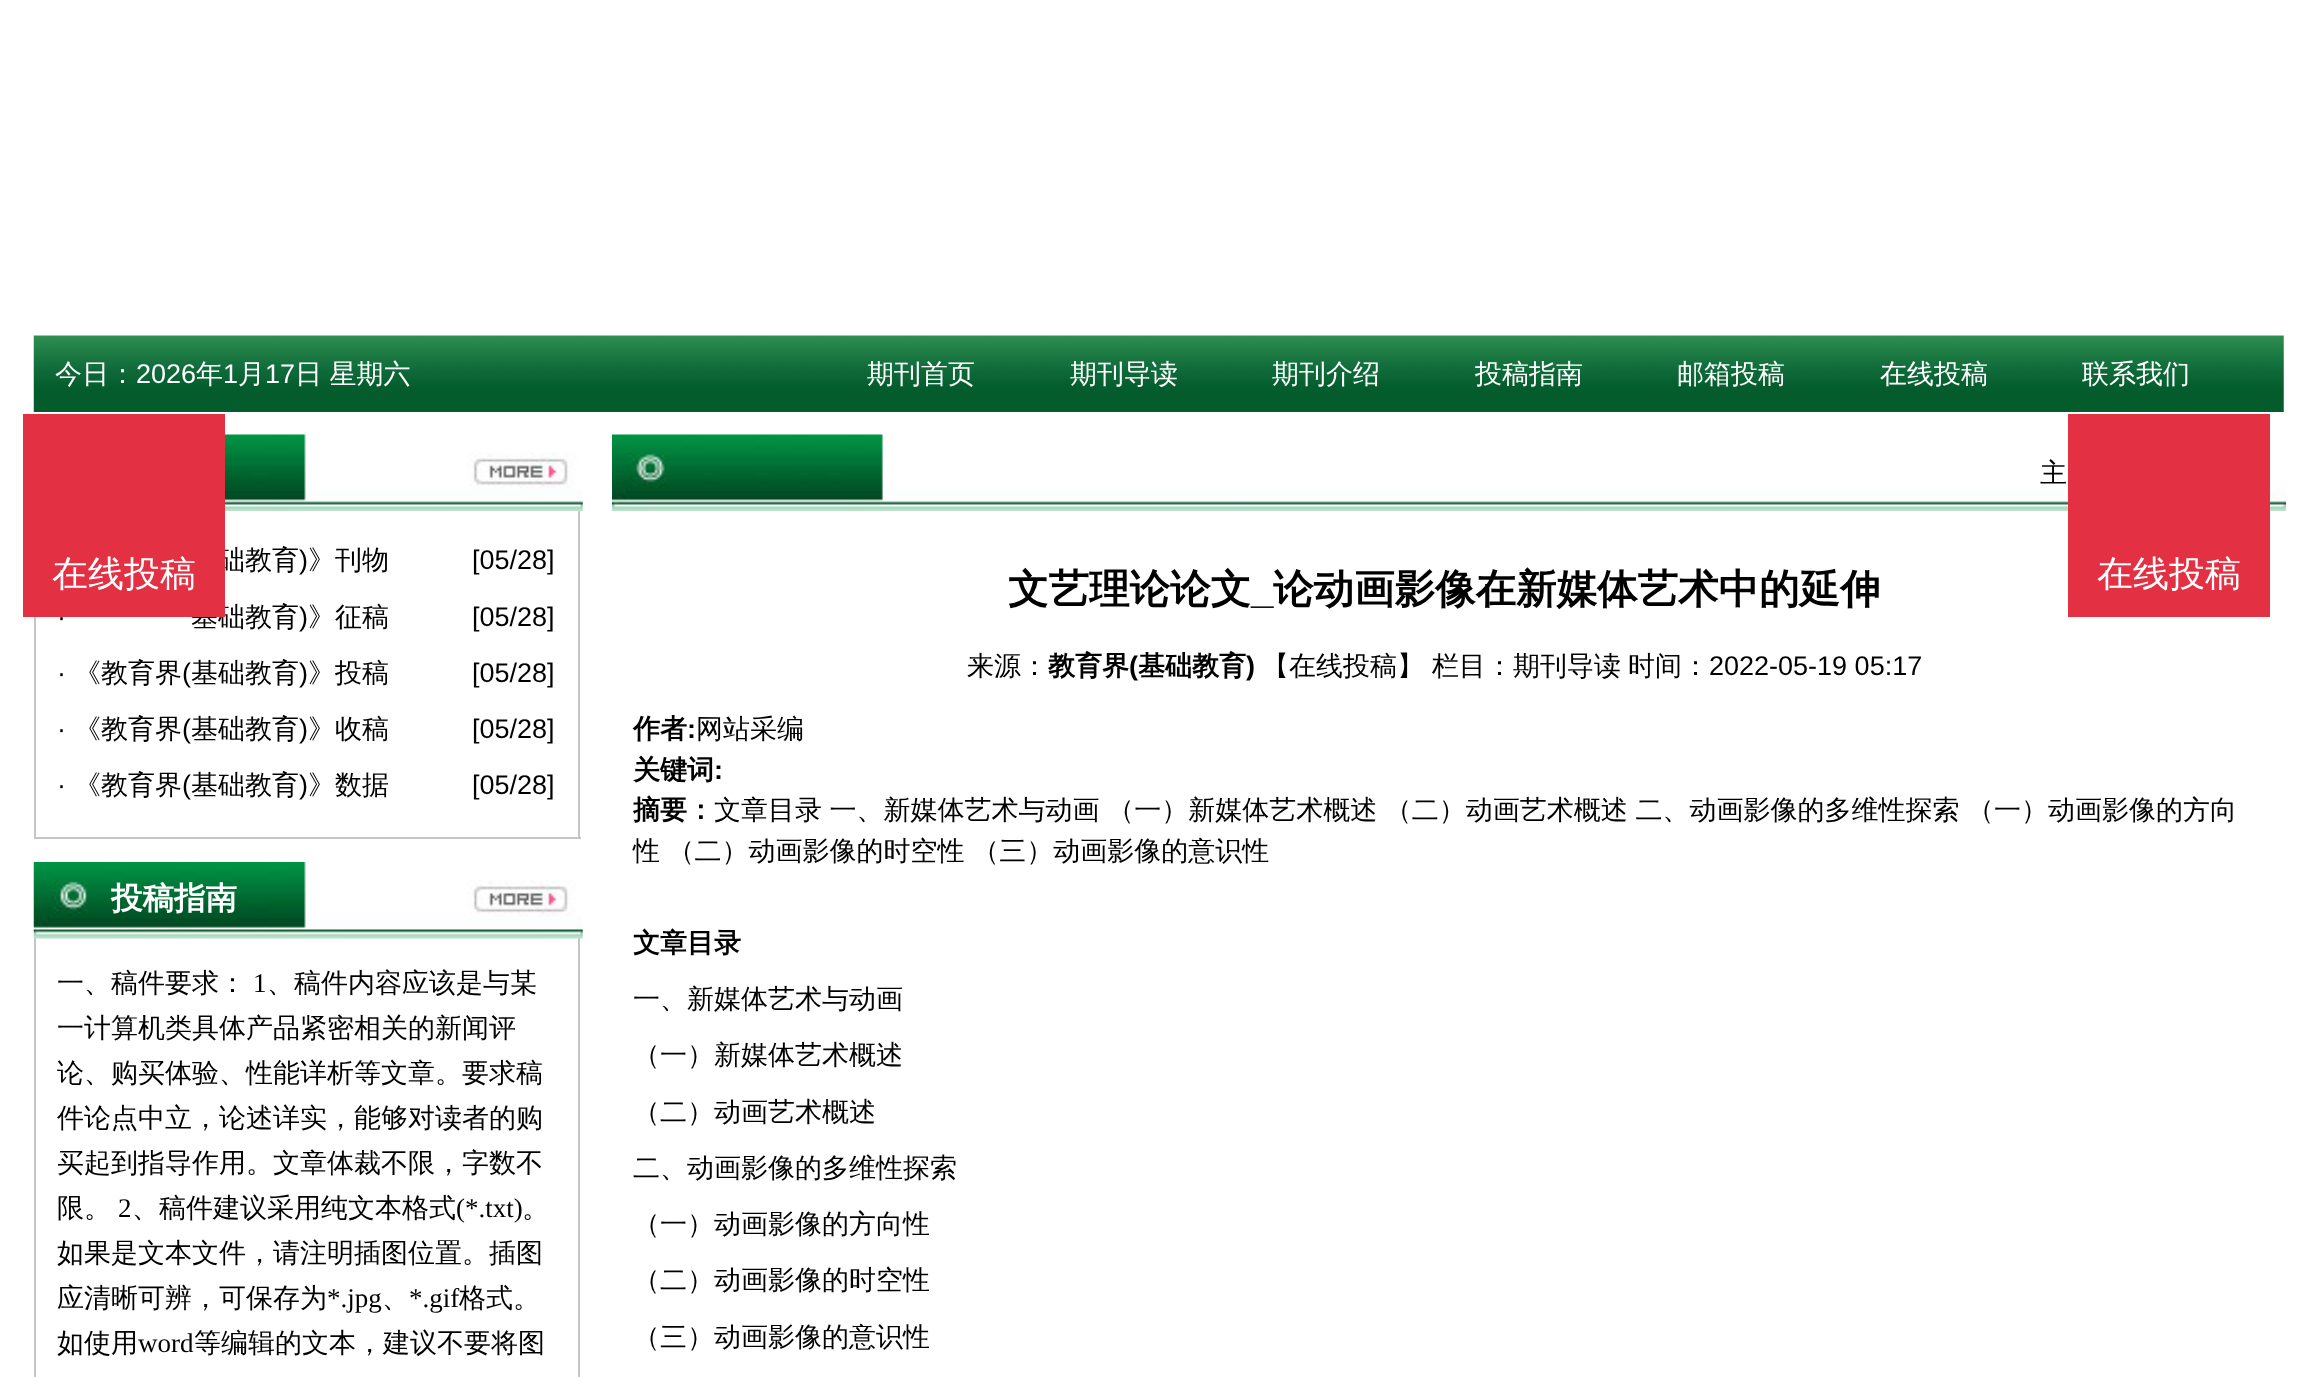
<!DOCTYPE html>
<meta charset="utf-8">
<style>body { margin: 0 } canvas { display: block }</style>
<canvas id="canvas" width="2315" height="1377"></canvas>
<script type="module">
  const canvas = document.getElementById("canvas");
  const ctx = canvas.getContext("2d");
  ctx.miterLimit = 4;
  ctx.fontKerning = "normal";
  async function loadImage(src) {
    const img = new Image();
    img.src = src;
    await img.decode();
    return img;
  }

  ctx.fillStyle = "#ffffff";
  ctx.fillRect(0, 0, 2315, 1377);
  ctx.drawImage(await loadImage("img1.png"), 33, 335, 2251, 77);
  ctx.font = "500 27px WenQuanYi Zen Hei";
  ctx.fillText("今日：", 55, 383);
  ctx.font = "27px Liberation Sans";
  ctx.fillText("2026", 136, 383);
  ctx.font = "500 27px WenQuanYi Zen Hei";
  ctx.fillText("年", 196, 383);
  ctx.font = "27px Liberation Sans";
  ctx.fillText("1", 223, 383);
  ctx.font = "500 27px WenQuanYi Zen Hei";
  ctx.fillText("月", 238, 383);
  ctx.font = "27px Liberation Sans";
  ctx.fillText("17", 265, 383);
  ctx.wordSpacing = "-0.5px";
  ctx.font = "500 27px WenQuanYi Zen Hei";
  ctx.fillText("日 星期六", 295, 383);
  ctx.wordSpacing = "0px";
  ctx.fillText("期刊首页", 867, 383);
  ctx.fillText("期刊导读", 1070, 383);
  ctx.fillText("期刊介绍", 1272, 383);
  ctx.fillText("投稿指南", 1475, 383);
  ctx.fillText("邮箱投稿", 1677, 383);
  ctx.fillText("在线投稿", 1880, 383);
  ctx.fillText("联系我们", 2082, 383);
  ctx.drawImage(await loadImage("img2.png"), 225, 434, 358, 77);
  ctx.fillStyle = "#c5c5c5";
  ctx.fillRect(578, 511, 2, 328);
  ctx.fillRect(34, 837, 547, 2);
  ctx.fillRect(34, 617, 2, 222);
  ctx.fillStyle = "#000000";
  ctx.fillText("础教育", 218, 569);
  ctx.font = "27px Liberation Sans";
  ctx.fillText(")", 299, 569);
  ctx.font = "500 27px WenQuanYi Zen Hei";
  ctx.fillText("》刊物", 308, 569);
  ctx.font = "27px Liberation Sans";
  ctx.fillText("[05/28]", 472, 569);
  ctx.fillText("·", 57, 626);
  ctx.font = "500 27px WenQuanYi Zen Hei";
  ctx.fillText("基础教育", 191, 626);
  ctx.font = "27px Liberation Sans";
  ctx.fillText(")", 299, 626);
  ctx.font = "500 27px WenQuanYi Zen Hei";
  ctx.fillText("》征稿", 308, 626);
  ctx.font = "27px Liberation Sans";
  ctx.fillText("[05/28]", 472, 626);
  ctx.fillText("·", 57, 682);
  ctx.font = "500 27px WenQuanYi Zen Hei";
  ctx.fillText("《教育界", 74, 682);
  ctx.font = "27px Liberation Sans";
  ctx.fillText("(", 182, 682);
  ctx.font = "500 27px WenQuanYi Zen Hei";
  ctx.fillText("基础教育", 191, 682);
  ctx.font = "27px Liberation Sans";
  ctx.fillText(")", 299, 682);
  ctx.font = "500 27px WenQuanYi Zen Hei";
  ctx.fillText("》投稿", 308, 682);
  ctx.font = "27px Liberation Sans";
  ctx.fillText("[05/28]", 472, 682);
  ctx.fillText("·", 57, 738);
  ctx.font = "500 27px WenQuanYi Zen Hei";
  ctx.fillText("《教育界", 74, 738);
  ctx.font = "27px Liberation Sans";
  ctx.fillText("(", 182, 738);
  ctx.font = "500 27px WenQuanYi Zen Hei";
  ctx.fillText("基础教育", 191, 738);
  ctx.font = "27px Liberation Sans";
  ctx.fillText(")", 299, 738);
  ctx.font = "500 27px WenQuanYi Zen Hei";
  ctx.fillText("》收稿", 308, 738);
  ctx.font = "27px Liberation Sans";
  ctx.fillText("[05/28]", 472, 738);
  ctx.fillText("·", 57, 794);
  ctx.font = "500 27px WenQuanYi Zen Hei";
  ctx.fillText("《教育界", 74, 794);
  ctx.font = "27px Liberation Sans";
  ctx.fillText("(", 182, 794);
  ctx.font = "500 27px WenQuanYi Zen Hei";
  ctx.fillText("基础教育", 191, 794);
  ctx.font = "27px Liberation Sans";
  ctx.fillText(")", 299, 794);
  ctx.font = "500 27px WenQuanYi Zen Hei";
  ctx.fillText("》数据", 308, 794);
  ctx.font = "27px Liberation Sans";
  ctx.fillText("[05/28]", 472, 794);
  ctx.fillStyle = "#c5c5c5";
  ctx.fillRect(578, 938, 2, 439);
  ctx.fillRect(34, 938, 2, 439);
  ctx.drawImage(await loadImage("img3.png"), 33, 862, 550, 77);
  ctx.font = "bold 31.5px WenQuanYi Zen Hei";
  ctx.fillStyle = "#ffffff";
  ctx.fillText("投稿指南", 111, 909);
  ctx.font = "500 27px WenQuanYi Zen Hei";
  ctx.fillStyle = "#000000";
  ctx.fillText("一、稿件要求：", 57, 992);
  ctx.font = "27px Liberation Serif";
  ctx.fillText("1", 253, 992);
  ctx.font = "500 27px WenQuanYi Zen Hei";
  ctx.fillText("、稿件内容应该是与某", 267, 992);
  ctx.fillText("一计算机类具体产品紧密相关的新闻评", 57, 1037);
  ctx.fillText("论、购买体验、性能详析等文章。要求稿", 57, 1082);
  ctx.fillText("件论点中立，论述详实，能够对读者的购", 57, 1127);
  ctx.fillText("买起到指导作用。文章体裁不限，字数不", 57, 1172);
  ctx.fillText("限。", 57, 1217);
  ctx.font = "27px Liberation Serif";
  ctx.fillText("2", 118, 1217);
  ctx.font = "500 27px WenQuanYi Zen Hei";
  ctx.fillText("、稿件建议采用纯文本格式", 132, 1217);
  ctx.font = "27px Liberation Serif";
  ctx.fillText("(*.txt)", 456, 1217);
  ctx.font = "500 27px WenQuanYi Zen Hei";
  ctx.fillText("。", 522, 1217);
  ctx.fillText("如果是文本文件，请注明插图位置。插图", 57, 1262);
  ctx.fillText("应清晰可辨，可保存为", 57, 1307);
  ctx.font = "27px Liberation Serif";
  ctx.fillText("*.jpg", 327, 1307);
  ctx.font = "500 27px WenQuanYi Zen Hei";
  ctx.fillText("、", 382, 1307);
  ctx.font = "27px Liberation Serif";
  ctx.fillText("*.gif", 409, 1307);
  ctx.font = "500 27px WenQuanYi Zen Hei";
  ctx.fillText("格式。", 459, 1307);
  ctx.fillText("如使用", 57, 1352);
  ctx.font = "27px Liberation Serif";
  ctx.fillText("word", 138, 1352);
  ctx.font = "500 27px WenQuanYi Zen Hei";
  ctx.fillText("等编辑的文本，建议不要将图", 194, 1352);
  ctx.drawImage(await loadImage("img4.png"), 612, 434, 1674, 77);
  ctx.fillText("主", 2040, 482);
  ctx.font = "bold 40.5px WenQuanYi Zen Hei";
  ctx.fillText("文艺理论论文", 1008, 603);
  ctx.font = "bold 40.5px Liberation Sans";
  ctx.fillText("_", 1251, 603);
  ctx.font = "bold 40.5px WenQuanYi Zen Hei";
  ctx.fillText("论动画影像在新媒体艺术中的延伸", 1273, 603);
  ctx.font = "500 27px WenQuanYi Zen Hei";
  ctx.fillText("来源：", 967, 675);
  ctx.font = "bold 27px WenQuanYi Zen Hei";
  ctx.fillText("教育界", 1048, 675);
  ctx.font = "bold 27px Liberation Sans";
  ctx.fillText("(", 1129, 675);
  ctx.font = "bold 27px WenQuanYi Zen Hei";
  ctx.fillText("基础教育", 1138, 675);
  ctx.font = "bold 27px Liberation Sans";
  ctx.fillText(")", 1246, 675);
  ctx.font = "500 27px WenQuanYi Zen Hei";
  ctx.fillText("【在线投稿】", 1262, 675);
  ctx.fillText("栏目：期刊导读", 1432, 675);
  ctx.fillText("时间：", 1628, 675);
  ctx.font = "27px Liberation Sans";
  ctx.fillText("2022-05-19 05:17", 1709, 675);
  ctx.font = "bold 27px WenQuanYi Zen Hei";
  ctx.fillText("作者", 633, 738);
  ctx.font = "bold 27px Liberation Sans";
  ctx.fillText(":", 687, 738);
  ctx.font = "500 27px WenQuanYi Zen Hei";
  ctx.fillText("网站采编", 696, 738);
  ctx.font = "bold 27px WenQuanYi Zen Hei";
  ctx.fillText("关键词", 633, 779);
  ctx.font = "bold 27px Liberation Sans";
  ctx.fillText(":", 714, 779);
  ctx.font = "bold 27px WenQuanYi Zen Hei";
  ctx.fillText("摘要：", 633, 819);
  ctx.wordSpacing = "-0.5px";
  ctx.font = "500 27px WenQuanYi Zen Hei";
  ctx.fillText("文章目录 一、新媒体艺术与动画 （一）新媒体艺术概述 （二）动画艺术概述 二、动画影像的多维性探索 （一）动画影像的方向", 714, 819);
  ctx.fillText("性 （二）动画影像的时空性 （三）动画影像的意识性", 633, 860);
  ctx.wordSpacing = "0px";
  ctx.font = "bold 27px WenQuanYi Zen Hei";
  ctx.fillText("文章目录", 633, 952);
  ctx.font = "500 27px WenQuanYi Zen Hei";
  ctx.fillText("一、新媒体艺术与动画", 633, 1008);
  ctx.fillText("（一）新媒体艺术概述", 633, 1064);
  ctx.fillText("（二）动画艺术概述", 633, 1121);
  ctx.fillText("二、动画影像的多维性探索", 633, 1177);
  ctx.fillText("（一）动画影像的方向性", 633, 1233);
  ctx.fillText("（二）动画影像的时空性", 633, 1289);
  ctx.fillText("（三）动画影像的意识性", 633, 1346);
  ctx.fillStyle = "#e33043";
  ctx.fillRect(23, 414, 202, 203);
  ctx.font = "500 36px WenQuanYi Zen Hei";
  ctx.fillStyle = "#ffffff";
  ctx.fillText("在线投稿", 52, 586);
  ctx.fillStyle = "#e33043";
  ctx.fillRect(2068, 414, 202, 203);
  ctx.fillStyle = "#ffffff";
  ctx.fillText("在线投稿", 2097, 586);
</script>
